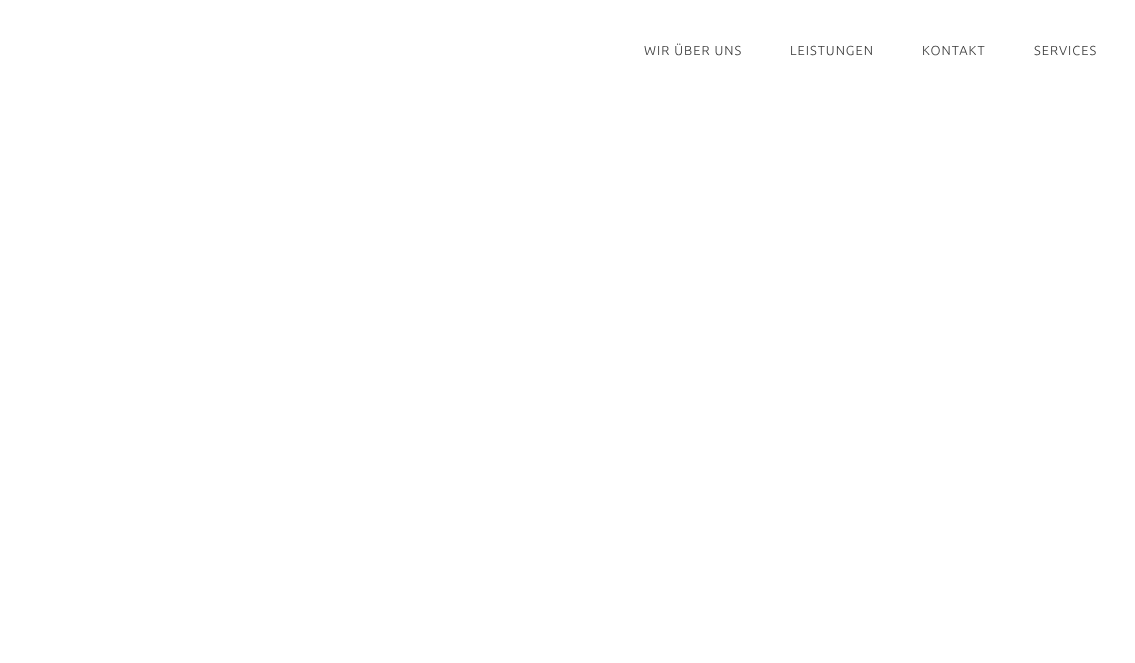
<!DOCTYPE html>
<meta charset="utf-8">
<style>body { margin: 0 } canvas { display: block }</style>
<canvas id="canvas" width="1135" height="663"></canvas>
<script type="module">
  const canvas = document.getElementById("canvas");
  const ctx = canvas.getContext("2d");
  ctx.miterLimit = 4;
  ctx.fontKerning = "normal";

  ctx.fillStyle = "#ffffff";
  ctx.fillRect(0, 0, 1135, 663);
  ctx.letterSpacing = "1px";
  ctx.font = "300 13px Ubuntu";
  ctx.fillStyle = "#393939";
  ctx.fillText("WIR ÜBER UNS", 644, 55);
  ctx.fillText("LEISTUNGEN", 790, 55);
  ctx.fillText("KONTAKT", 922, 55);
  ctx.fillText("SERVICES", 1034, 55);
</script>
